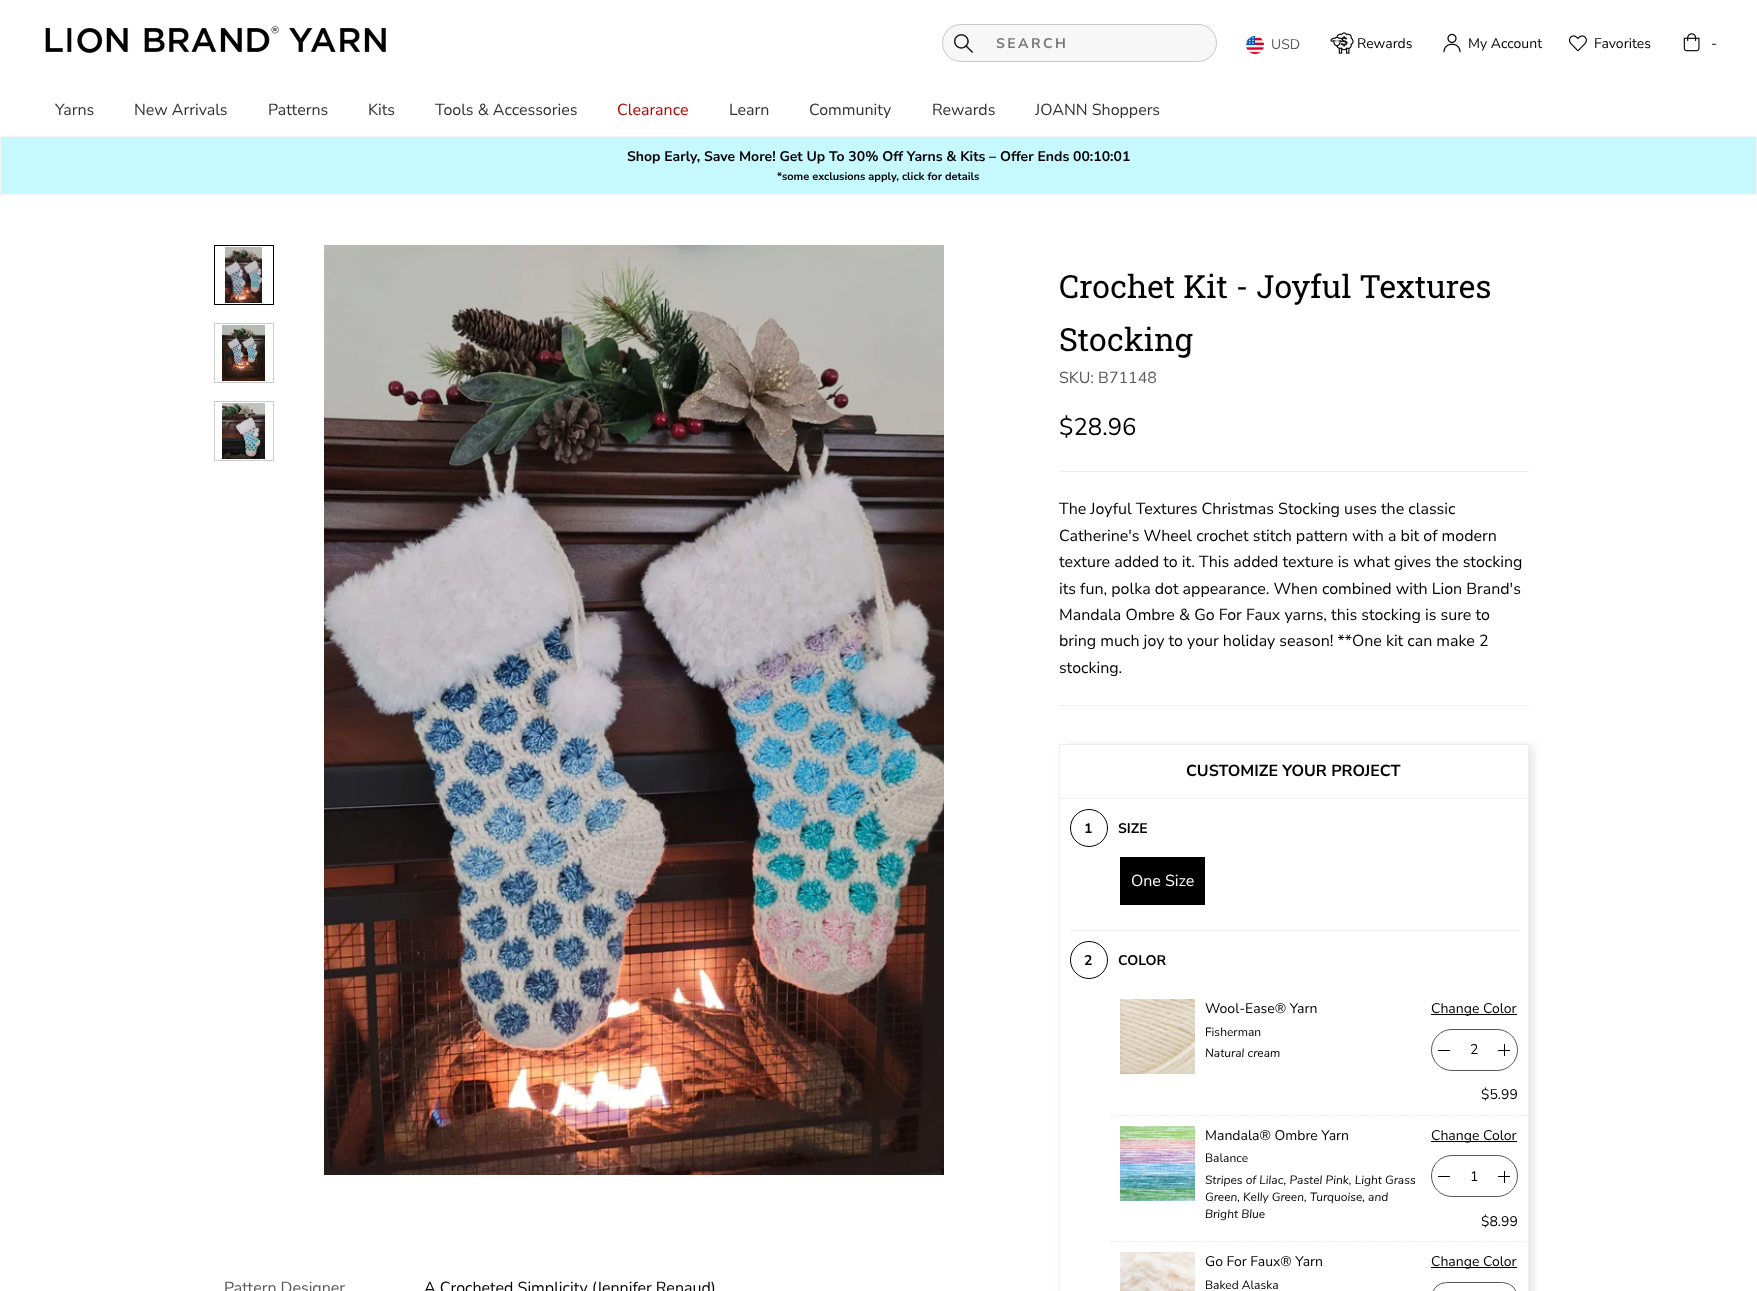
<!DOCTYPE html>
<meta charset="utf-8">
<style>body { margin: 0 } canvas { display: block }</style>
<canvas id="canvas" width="1757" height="1291"></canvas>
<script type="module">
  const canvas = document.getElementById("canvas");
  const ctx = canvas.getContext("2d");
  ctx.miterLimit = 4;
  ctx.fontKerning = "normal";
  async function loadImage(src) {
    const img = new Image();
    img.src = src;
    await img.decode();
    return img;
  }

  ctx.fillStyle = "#ffffff";
  ctx.fillRect(0, 0, 1757, 1291);
  ctx.drawImage(await loadImage("img1.png"), 45, 25, 341, 28);
  ctx.fillStyle = "#f7f7f7";
  ctx.beginPath();
  ctx.roundRect(942, 24, 275, 38, 19);
  ctx.fill();
  ctx.beginPath();
  ctx.roundRect(942.5, 24.5, 274, 37, 18.5);
  ctx.strokeStyle = "rgba(89, 89, 89, 0.3)";
  ctx.stroke();
  ctx.drawImage(await loadImage("img2.png"), 954, 34, 19, 19);
  ctx.letterSpacing = "2.5px";
  ctx.font = "bold 14px Nunito Sans";
  ctx.fillStyle = "#797979";
  ctx.fillText("SEARCH", 996, 48);
  ctx.drawImage(await loadImage("img3.png"), 1246, 36, 18, 18);
  ctx.letterSpacing = "0px";
  ctx.font = "14px Nunito Sans";
  ctx.fillStyle = "#595959";
  ctx.fillText("USD", 1271, 49);
  ctx.drawImage(await loadImage("img4.png"), 1330, 32, 24, 22);
  ctx.fillStyle = "#000000";
  ctx.fillText("Rewards", 1357, 48);
  ctx.drawImage(await loadImage("img5.png"), 1443, 33, 18, 20);
  ctx.fillText("My Account", 1468, 48);
  ctx.drawImage(await loadImage("img6.png"), 1568, 35, 19, 17);
  ctx.fillText("Favorites", 1594, 48);
  ctx.drawImage(await loadImage("img7.png"), 1683, 33, 17, 19);
  ctx.fillText("-", 1711, 48);
  ctx.font = "16px Nunito Sans";
  ctx.fillStyle = "#333333";
  ctx.fillText("Yarns", 55, 115);
  ctx.fillText("New Arrivals", 134, 115);
  ctx.fillText("Patterns", 268, 115);
  ctx.fillText("Kits", 368, 115);
  ctx.fillText("Tools & Accessories", 435, 115);
  ctx.fillStyle = "#b50000";
  ctx.fillText("Clearance", 617, 115);
  ctx.fillStyle = "#333333";
  ctx.fillText("Learn", 729, 115);
  ctx.fillText("Community", 809, 115);
  ctx.fillText("Rewards", 932, 115);
  ctx.fillText("JOANN Shoppers", 1035, 115);
  ctx.fillStyle = "#c6f8ff";
  ctx.beginPath();
  ctx.rect(0.5, 136.5, 1756, 58);
  ctx.fill();
  ctx.strokeStyle = "#f5f5f5";
  ctx.stroke();
  ctx.font = "bold 14px Nunito Sans";
  ctx.fillStyle = "#000000";
  ctx.fillText("Shop Early, Save More! Get Up To 30% Off Yarns & Kits – Offer Ends 00:10:01", 627, 161);
  ctx.font = "bold 11px Nunito Sans";
  ctx.fillText("*some exclusions apply, click for details", 777, 180);
  ctx.strokeStyle = "#000000";
  ctx.strokeRect(214.5, 245.5, 59, 59);
  ctx.drawImage(await loadImage("img8.png"), 225, 247, 37, 56);
  ctx.strokeStyle = "#cccccc";
  ctx.strokeRect(214.5, 323.5, 59, 59);
  ctx.drawImage(await loadImage("img9.png"), 222, 325, 43, 56);
  ctx.strokeRect(214.5, 401.5, 59, 59);
  ctx.drawImage(await loadImage("img10.png"), 222, 403, 43, 56);
  ctx.drawImage(await loadImage("img11.png"), 324, 245, 620, 930);
  ctx.font = "32px Roboto Slab";
  ctx.fillText("Crochet Kit - Joyful Textures", 1059, 298);
  ctx.fillText("Stocking", 1059, 351);
  ctx.font = "16px Nunito Sans";
  ctx.fillStyle = "#595959";
  ctx.fillText("SKU: B71148", 1059, 383);
  ctx.font = "24px Nunito Sans";
  ctx.fillStyle = "#000000";
  ctx.fillText("$28.96", 1059, 435);
  ctx.fillStyle = "#ededed";
  ctx.fillRect(1059, 471, 470, 1);
  ctx.fillRect(1059, 705, 470, 1);
  ctx.font = "16px Nunito Sans";
  ctx.fillStyle = "#000000";
  ctx.fillText("The Joyful Textures Christmas Stocking uses the classic", 1059, 514);
  ctx.fillText("Catherine's Wheel crochet stitch pattern with a bit of modern", 1059, 541);
  ctx.fillText("texture added to it. This added texture is what gives the stocking", 1059, 567);
  ctx.fillText("its fun, polka dot appearance. When combined with Lion Brand's", 1059, 594);
  ctx.fillText("Mandala Ombre & Go For Faux yarns, this stocking is sure to", 1059, 620);
  ctx.fillText("bring much joy to your holiday season! **One kit can make 2", 1059, 646);
  ctx.fillText("stocking.", 1059, 673);
  ctx.save();
  ctx.beginPath();
  ctx.moveTo(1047, 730);
  ctx.lineTo(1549, 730);
  ctx.lineTo(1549, 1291);
  ctx.lineTo(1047, 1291);
  ctx.closePath();
  ctx.moveTo(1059, 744);
  ctx.lineTo(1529, 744);
  ctx.lineTo(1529, 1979);
  ctx.lineTo(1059, 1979);
  ctx.closePath();
  ctx.clip("evenodd");
  ctx.fillStyle = "#e5e5e5";
  ctx.filter = "blur(5px)";
  ctx.beginPath();
  ctx.rect(1063, 746, 470, 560);
  ctx.fill();
  ctx.filter = "none";
  ctx.restore();
  ctx.strokeStyle = "#ededed";
  ctx.strokeRect(1059.5, 744.5, 469, 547);
  ctx.fillStyle = "#ededed";
  ctx.fillRect(1060, 798, 468, 1);
  ctx.font = "bold 16px Nunito Sans";
  ctx.fillStyle = "#000000";
  ctx.fillText("CUSTOMIZE YOUR PROJECT", 1186, 776);
  ctx.beginPath();
  ctx.arc(1089, 828, 18.5, 0, Math.PI * 2);
  ctx.strokeStyle = "#000000";
  ctx.stroke();
  ctx.font = "bold 14px Nunito Sans";
  ctx.fillText("1", 1084, 833);
  ctx.fillText("SIZE", 1118, 833);
  ctx.fillRect(1120, 857, 85, 48);
  ctx.font = "16px Nunito Sans";
  ctx.fillStyle = "#ffffff";
  ctx.fillText("One Size", 1131, 886);
  ctx.fillStyle = "#ededed";
  ctx.fillRect(1070, 930, 448, 1);
  ctx.beginPath();
  ctx.arc(1089, 960, 18.5, 0, Math.PI * 2);
  ctx.stroke();
  ctx.font = "bold 14px Nunito Sans";
  ctx.fillStyle = "#000000";
  ctx.fillText("2", 1084, 965);
  ctx.fillText("COLOR", 1118, 965);
  ctx.drawImage(await loadImage("img12.png"), 1120, 999, 75, 75);
  ctx.font = "14px Nunito Sans";
  ctx.fillText("Wool-Ease® Yarn", 1205, 1013);
  ctx.font = "12px Nunito Sans";
  ctx.fillText("Fisherman", 1205, 1036);
  ctx.font = "italic 12px Nunito Sans";
  ctx.fillText("Natural cream", 1205, 1057);
  ctx.fillRect(1431, 1014, 86, 1);
  ctx.font = "14px Nunito Sans";
  ctx.fillText("Change Color", 1431, 1013);
  ctx.beginPath();
  ctx.roundRect(1431.5, 1029.5, 86, 41, 20.5);
  ctx.strokeStyle = "#595959";
  ctx.stroke();
  ctx.fillRect(1438, 1050, 12, 1);
  ctx.fillText("2", 1470, 1054);
  ctx.fillRect(1498, 1050, 12, 1);
  ctx.fillRect(1504, 1044, 1, 12);
  ctx.fillText("$5.99", 1481, 1099);
  ctx.beginPath();
  ctx.moveTo(1110, 1115.5);
  ctx.lineTo(1528, 1115.5);
  ctx.strokeStyle = "#ededed";
  ctx.setLineDash([3, 2]);
  ctx.stroke();
  ctx.drawImage(await loadImage("img13.png"), 1120, 1126, 75, 75);
  ctx.fillText("Mandala® Ombre Yarn", 1205, 1140);
  ctx.font = "12px Nunito Sans";
  ctx.fillText("Balance", 1205, 1162);
  ctx.font = "italic 12px Nunito Sans";
  ctx.fillText("Stripes of Lilac, Pastel Pink, Light Grass", 1205, 1184);
  ctx.fillText("Green, Kelly Green, Turquoise, and", 1205, 1201);
  ctx.fillText("Bright Blue", 1205, 1218);
  ctx.fillRect(1431, 1141, 86, 1);
  ctx.font = "14px Nunito Sans";
  ctx.fillText("Change Color", 1431, 1140);
  ctx.beginPath();
  ctx.roundRect(1431.5, 1155.5, 86, 41, 20.5);
  ctx.strokeStyle = "#595959";
  ctx.setLineDash([]);
  ctx.stroke();
  ctx.fillRect(1438, 1176, 12, 1);
  ctx.fillText("1", 1470, 1181);
  ctx.fillRect(1498, 1176, 12, 1);
  ctx.fillRect(1504, 1171, 1, 12);
  ctx.fillText("$8.99", 1481, 1226);
  ctx.beginPath();
  ctx.moveTo(1110, 1241.5);
  ctx.lineTo(1528, 1241.5);
  ctx.strokeStyle = "#ededed";
  ctx.setLineDash([3, 2]);
  ctx.stroke();
  ctx.drawImage(await loadImage("img14.png"), 1120, 1252, 75, 39);
  ctx.fillText("Go For Faux® Yarn", 1205, 1266);
  ctx.font = "12px Nunito Sans";
  ctx.fillText("Baked Alaska", 1205, 1289);
  ctx.fillRect(1431, 1267, 86, 1);
  ctx.font = "14px Nunito Sans";
  ctx.fillText("Change Color", 1431, 1266);
  ctx.beginPath();
  ctx.roundRect(1431.5, 1282.5, 86, 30, 20.5);
  ctx.strokeStyle = "#595959";
  ctx.setLineDash([]);
  ctx.stroke();
  ctx.font = "16px Nunito Sans";
  ctx.fillStyle = "#595959";
  ctx.fillText("Pattern Designer", 224, 1293);
  ctx.fillStyle = "#000000";
  ctx.fillText("A Crocheted Simplicity (Jennifer Renaud)", 424, 1293);
</script>
